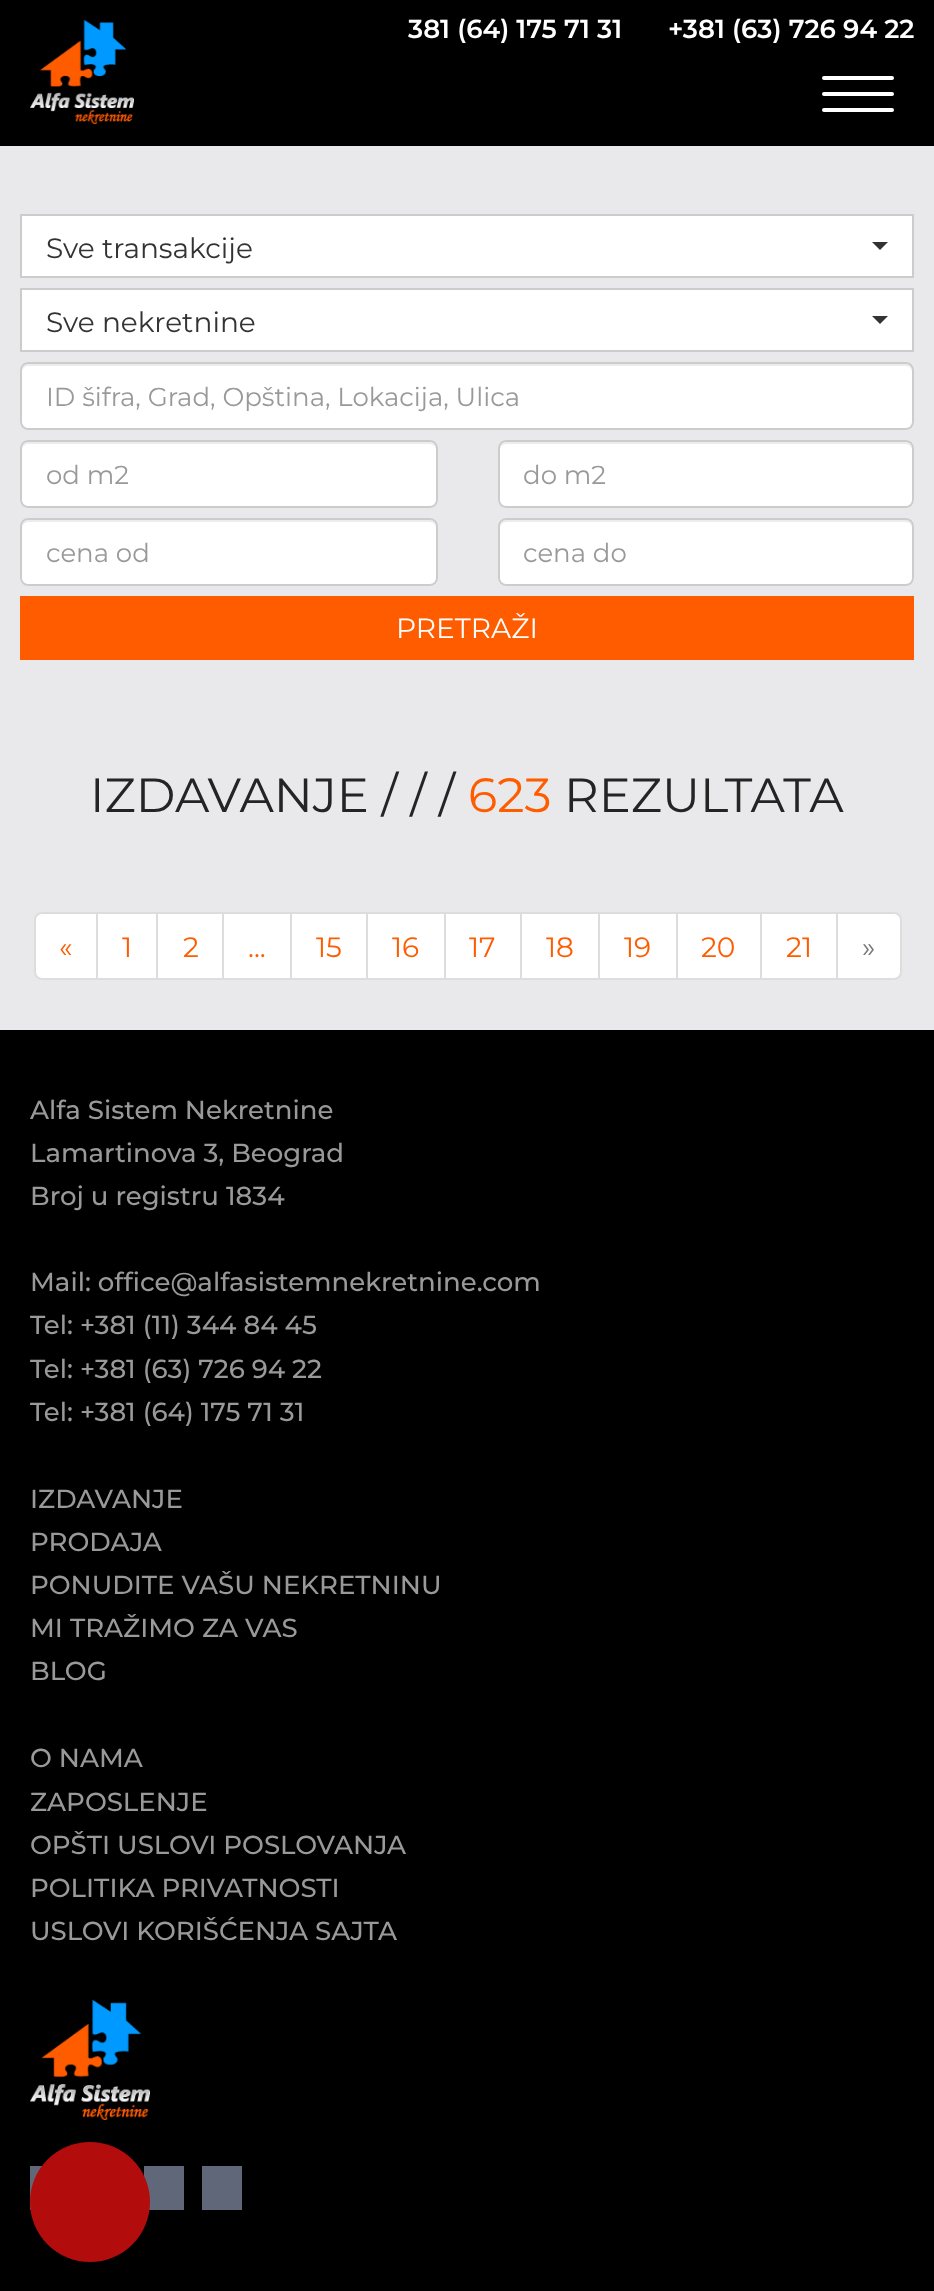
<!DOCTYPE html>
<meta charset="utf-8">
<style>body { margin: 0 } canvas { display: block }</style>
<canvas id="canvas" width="934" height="2291"></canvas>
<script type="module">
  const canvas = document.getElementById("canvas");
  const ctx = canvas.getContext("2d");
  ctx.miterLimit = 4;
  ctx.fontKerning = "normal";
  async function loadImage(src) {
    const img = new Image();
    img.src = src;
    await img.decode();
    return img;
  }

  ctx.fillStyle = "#e9e9eb";
  ctx.fillRect(0, 0, 934, 2291);
  ctx.fillStyle = "#000000";
  ctx.fillRect(0, 0, 934, 146);
  ctx.font = "600 26px Montserrat";
  ctx.fillStyle = "#ffffff";
  ctx.fillText("381 (64) 175 71 31", 408, 38);
  ctx.fillText("+381 (63) 726 94 22", 668, 38);
  ctx.drawImage(await loadImage("img1.png"), 30, 20, 104, 104);
  ctx.beginPath();
  ctx.roundRect(822, 76, 72, 4, 2);
  ctx.fill();
  ctx.beginPath();
  ctx.roundRect(822, 92, 72, 4, 2);
  ctx.fill();
  ctx.beginPath();
  ctx.roundRect(822, 108, 72, 4, 2);
  ctx.fill();
  ctx.beginPath();
  ctx.rect(21, 215, 892, 62);
  ctx.fill();
  ctx.strokeStyle = "#cccccc";
  ctx.lineWidth = 2;
  ctx.stroke();
  ctx.font = "28px Montserrat";
  ctx.fillStyle = "#333333";
  ctx.fillText("Sve transakcije", 46, 258);
  ctx.beginPath();
  ctx.moveTo(872, 242);
  ctx.lineTo(888, 242);
  ctx.lineTo(880, 250);
  ctx.closePath();
  ctx.fill();
  ctx.fillStyle = "#ffffff";
  ctx.beginPath();
  ctx.rect(21, 289, 892, 62);
  ctx.fill();
  ctx.stroke();
  ctx.fillStyle = "#333333";
  ctx.fillText("Sve nekretnine", 46, 332);
  ctx.beginPath();
  ctx.moveTo(872, 316);
  ctx.lineTo(888, 316);
  ctx.lineTo(880, 324);
  ctx.closePath();
  ctx.fill();
  ctx.fillStyle = "#ffffff";
  ctx.beginPath();
  ctx.roundRect(20, 362, 894, 68, 8);
  ctx.fill();
  ctx.fillStyle = "#ececec";
  ctx.beginPath();
  ctx.moveTo(28, 366);
  ctx.lineTo(906, 366);
  ctx.bezierCurveTo(909, 366, 912, 369, 912, 372);
  ctx.lineTo(912, 370);
  ctx.bezierCurveTo(912, 367, 909, 364, 906, 364);
  ctx.lineTo(28, 364);
  ctx.bezierCurveTo(25, 364, 22, 367, 22, 370);
  ctx.lineTo(22, 372);
  ctx.bezierCurveTo(22, 369, 25, 366, 28, 366);
  ctx.closePath();
  ctx.fill();
  ctx.beginPath();
  ctx.roundRect(21, 363, 892, 66, 7);
  ctx.stroke();
  ctx.font = "26px Montserrat";
  ctx.fillStyle = "#999999";
  ctx.fillText("ID šifra, Grad, Opština, Lokacija, Ulica", 46, 406);
  ctx.fillStyle = "#ffffff";
  ctx.beginPath();
  ctx.roundRect(20, 440, 418, 68, 8);
  ctx.fill();
  ctx.fillStyle = "#ececec";
  ctx.beginPath();
  ctx.moveTo(28, 444);
  ctx.lineTo(430, 444);
  ctx.bezierCurveTo(433, 444, 436, 447, 436, 450);
  ctx.lineTo(436, 448);
  ctx.bezierCurveTo(436, 445, 433, 442, 430, 442);
  ctx.lineTo(28, 442);
  ctx.bezierCurveTo(25, 442, 22, 445, 22, 448);
  ctx.lineTo(22, 450);
  ctx.bezierCurveTo(22, 447, 25, 444, 28, 444);
  ctx.closePath();
  ctx.fill();
  ctx.beginPath();
  ctx.roundRect(21, 441, 416, 66, 7);
  ctx.stroke();
  ctx.fillStyle = "#999999";
  ctx.fillText("od m2", 46, 484);
  ctx.fillStyle = "#ffffff";
  ctx.beginPath();
  ctx.roundRect(498, 440, 416, 68, 8);
  ctx.fill();
  ctx.fillStyle = "#ececec";
  ctx.beginPath();
  ctx.moveTo(506, 444);
  ctx.lineTo(906, 444);
  ctx.bezierCurveTo(909, 444, 912, 447, 912, 450);
  ctx.lineTo(912, 448);
  ctx.bezierCurveTo(912, 445, 909, 442, 906, 442);
  ctx.lineTo(506, 442);
  ctx.bezierCurveTo(503, 442, 500, 445, 500, 448);
  ctx.lineTo(500, 450);
  ctx.bezierCurveTo(500, 447, 503, 444, 506, 444);
  ctx.closePath();
  ctx.fill();
  ctx.beginPath();
  ctx.roundRect(499, 441, 414, 66, 7);
  ctx.stroke();
  ctx.fillStyle = "#999999";
  ctx.fillText("do m2", 523, 484);
  ctx.fillStyle = "#ffffff";
  ctx.beginPath();
  ctx.roundRect(20, 518, 418, 68, 8);
  ctx.fill();
  ctx.fillStyle = "#ececec";
  ctx.beginPath();
  ctx.moveTo(28, 522);
  ctx.lineTo(430, 522);
  ctx.bezierCurveTo(433, 522, 436, 525, 436, 528);
  ctx.lineTo(436, 526);
  ctx.bezierCurveTo(436, 523, 433, 520, 430, 520);
  ctx.lineTo(28, 520);
  ctx.bezierCurveTo(25, 520, 22, 523, 22, 526);
  ctx.lineTo(22, 528);
  ctx.bezierCurveTo(22, 525, 25, 522, 28, 522);
  ctx.closePath();
  ctx.fill();
  ctx.beginPath();
  ctx.roundRect(21, 519, 416, 66, 7);
  ctx.stroke();
  ctx.fillStyle = "#999999";
  ctx.fillText("cena od", 46, 562);
  ctx.fillStyle = "#ffffff";
  ctx.beginPath();
  ctx.roundRect(498, 518, 416, 68, 8);
  ctx.fill();
  ctx.fillStyle = "#ececec";
  ctx.beginPath();
  ctx.moveTo(506, 522);
  ctx.lineTo(906, 522);
  ctx.bezierCurveTo(909, 522, 912, 525, 912, 528);
  ctx.lineTo(912, 526);
  ctx.bezierCurveTo(912, 523, 909, 520, 906, 520);
  ctx.lineTo(506, 520);
  ctx.bezierCurveTo(503, 520, 500, 523, 500, 526);
  ctx.lineTo(500, 528);
  ctx.bezierCurveTo(500, 525, 503, 522, 506, 522);
  ctx.closePath();
  ctx.fill();
  ctx.beginPath();
  ctx.roundRect(499, 519, 414, 66, 7);
  ctx.stroke();
  ctx.fillStyle = "#999999";
  ctx.fillText("cena do", 523, 562);
  ctx.fillStyle = "#ff5c00";
  ctx.fillRect(20, 596, 894, 64);
  ctx.font = "28px Montserrat";
  ctx.fillStyle = "#ffffff";
  ctx.fillText("PRETRAŽI", 396, 638);
  ctx.font = "48px Montserrat";
  ctx.fillStyle = "#242424";
  ctx.fillText("IZDAVANJE / / /", 90, 812);
  ctx.fillStyle = "#ff5c00";
  ctx.fillText("623", 468, 812);
  ctx.fillStyle = "#242424";
  ctx.fillText("REZULTATA", 564, 812);
  ctx.fillStyle = "#ffffff";
  ctx.beginPath();
  ctx.roundRect(35, 913, 62, 66, [7, 0, 0, 7]);
  ctx.fill();
  ctx.strokeStyle = "#dddddd";
  ctx.stroke();
  ctx.font = "28px Montserrat";
  ctx.fillStyle = "#ff5c00";
  ctx.fillText("«", 59, 957);
  ctx.fillStyle = "#ffffff";
  ctx.beginPath();
  ctx.rect(97, 913, 60, 66);
  ctx.fill();
  ctx.stroke();
  ctx.fillStyle = "#ff5c00";
  ctx.fillText("1", 122, 957);
  ctx.fillStyle = "#ffffff";
  ctx.beginPath();
  ctx.rect(157, 913, 66, 66);
  ctx.fill();
  ctx.stroke();
  ctx.fillStyle = "#ff5c00";
  ctx.fillText("2", 183, 957);
  ctx.fillStyle = "#ffffff";
  ctx.beginPath();
  ctx.rect(223, 913, 68, 66);
  ctx.fill();
  ctx.stroke();
  ctx.beginPath();
  ctx.rect(291, 913, 76, 66);
  ctx.fill();
  ctx.stroke();
  ctx.fillStyle = "#ff5c00";
  ctx.fillText("15", 316, 957);
  ctx.fillStyle = "#ffffff";
  ctx.beginPath();
  ctx.rect(367, 913, 78, 66);
  ctx.fill();
  ctx.stroke();
  ctx.fillStyle = "#ff5c00";
  ctx.fillText("16", 392, 957);
  ctx.fillStyle = "#ffffff";
  ctx.beginPath();
  ctx.rect(445, 913, 76, 66);
  ctx.fill();
  ctx.stroke();
  ctx.fillStyle = "#ff5c00";
  ctx.fillText("17", 469, 957);
  ctx.fillStyle = "#ffffff";
  ctx.beginPath();
  ctx.rect(521, 913, 78, 66);
  ctx.fill();
  ctx.stroke();
  ctx.fillStyle = "#ff5c00";
  ctx.fillText("18", 546, 957);
  ctx.fillStyle = "#ffffff";
  ctx.beginPath();
  ctx.rect(599, 913, 78, 66);
  ctx.fill();
  ctx.stroke();
  ctx.fillStyle = "#ff5c00";
  ctx.fillText("19", 624, 957);
  ctx.fillStyle = "#ffffff";
  ctx.beginPath();
  ctx.rect(677, 913, 84, 66);
  ctx.fill();
  ctx.stroke();
  ctx.fillStyle = "#ff5c00";
  ctx.fillText("20", 701, 957);
  ctx.fillStyle = "#ffffff";
  ctx.beginPath();
  ctx.rect(761, 913, 76, 66);
  ctx.fill();
  ctx.stroke();
  ctx.fillStyle = "#ff5c00";
  ctx.fillText("21", 786, 957);
  ctx.fillStyle = "#ffffff";
  ctx.beginPath();
  ctx.roundRect(837, 913, 64, 66, [0, 7, 7, 0]);
  ctx.fill();
  ctx.stroke();
  ctx.fillStyle = "#777777";
  ctx.fillText("»", 862, 957);
  ctx.fillStyle = "#ff5c00";
  ctx.fillText("...", 248, 957);
  ctx.fillStyle = "#000000";
  ctx.fillRect(0, 1030, 934, 1261);
  ctx.font = "500 26px Montserrat";
  ctx.fillStyle = "#999999";
  ctx.fillText("Alfa Sistem Nekretnine", 30, 1119);
  ctx.fillText("Lamartinova 3, Beograd", 30, 1162);
  ctx.fillText("Broj u registru 1834", 30, 1205);
  ctx.fillText("Mail: office@alfasistemnekretnine.com", 30, 1291);
  ctx.fillText("Tel: +381 (11) 344 84 45", 30, 1334);
  ctx.fillText("Tel: +381 (63) 726 94 22", 30, 1378);
  ctx.fillText("Tel: +381 (64) 175 71 31", 30, 1421);
  ctx.fillText("IZDAVANJE", 30, 1508);
  ctx.fillText("PRODAJA", 30, 1551);
  ctx.fillText("PONUDITE VAŠU NEKRETNINU", 30, 1594);
  ctx.fillText("MI TRAŽIMO ZA VAS", 30, 1637);
  ctx.fillText("BLOG", 30, 1680);
  ctx.fillText("O NAMA", 30, 1767);
  ctx.fillText("ZAPOSLENJE", 30, 1811);
  ctx.fillText("OPŠTI USLOVI POSLOVANJA", 30, 1854);
  ctx.fillText("POLITIKA PRIVATNOSTI", 30, 1897);
  ctx.fillText("USLOVI KORIŠĆENJA SAJTA", 30, 1940);
  ctx.drawImage(await loadImage("img2.png"), 30, 2000, 120, 120);
  ctx.fillStyle = "#5f6778";
  ctx.fillRect(30, 2166, 12, 44);
  ctx.fillRect(144, 2166, 40, 44);
  ctx.fillRect(202, 2166, 40, 44);
  ctx.fillStyle = "#b20c0c";
  ctx.beginPath();
  ctx.arc(90, 2202, 60, 0, Math.PI * 2);
  ctx.fill();
</script>
